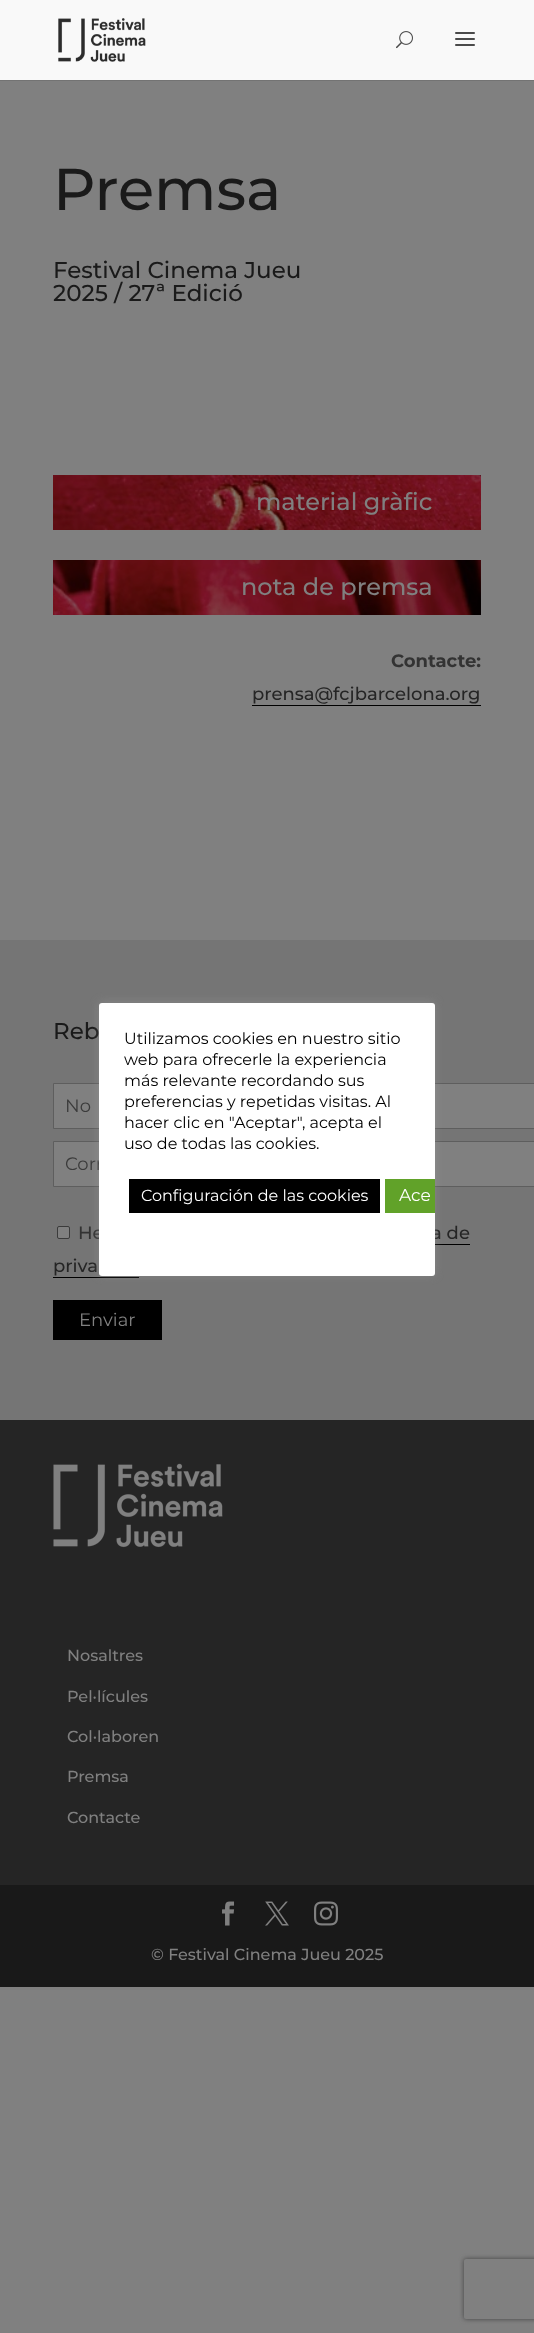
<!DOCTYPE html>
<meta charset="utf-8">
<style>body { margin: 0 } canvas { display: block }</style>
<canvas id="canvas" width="534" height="2333"></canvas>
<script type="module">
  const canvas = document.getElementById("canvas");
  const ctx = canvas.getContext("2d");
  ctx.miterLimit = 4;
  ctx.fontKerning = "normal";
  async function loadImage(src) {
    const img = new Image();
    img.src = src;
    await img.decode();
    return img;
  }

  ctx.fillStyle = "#808080";
  ctx.fillRect(0, 0, 534, 2333);
  ctx.fillStyle = "#737373";
  ctx.fillRect(0, 80, 534, 1);
  ctx.fillStyle = "#f9f9f9";
  ctx.fillRect(0, 0, 534, 80);
  ctx.drawImage(await loadImage("img1.png"), 58, 18, 88, 44);
  ctx.drawImage(await loadImage("img2.png"), 396, 31, 17, 18);
  ctx.drawImage(await loadImage("img3.png"), 455, 32, 20, 14);
  ctx.font = "500 59px Montserrat";
  ctx.fillStyle = "#1a1a1a";
  ctx.fillText("Premsa", 53, 210);
  ctx.font = "500 23px Montserrat";
  ctx.fillText("Festival Cinema Jueu", 53, 278);
  ctx.fillText("2025 / 27ª Edició", 53, 301);
  ctx.drawImage(await loadImage("img4.png"), 53, 475, 428, 55);
  ctx.font = "500 24px Montserrat";
  ctx.fillStyle = "#808080";
  ctx.fillText("material gràfic", 256, 510);
  ctx.drawImage(await loadImage("img5.png"), 53, 560, 428, 55);
  ctx.fillText("nota de premsa", 241, 595);
  ctx.font = "bold 18px Montserrat";
  ctx.fillStyle = "#333333";
  ctx.fillText("Contacte:", 391, 667);
  ctx.font = "500 18px Montserrat";
  ctx.fillStyle = "#252525";
  ctx.fillText("prensa@fcjbarcelona.org", 252, 700);
  ctx.fillStyle = "#000000";
  ctx.fillRect(252, 705, 229, 1);
  ctx.fillStyle = "#757575";
  ctx.fillRect(0, 940, 534, 480);
  ctx.font = "500 23px Montserrat";
  ctx.fillStyle = "#1a1a1a";
  ctx.fillText("Reb", 53, 1039);
  ctx.fillStyle = "#808080";
  ctx.beginPath();
  ctx.rect(53.5, 1083.5, 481, 45);
  ctx.fill();
  ctx.strokeStyle = "#5e5e5e";
  ctx.stroke();
  ctx.font = "18px Montserrat";
  ctx.fillStyle = "#3b3b3b";
  ctx.fillText("No", 65, 1112);
  ctx.fillStyle = "#808080";
  ctx.beginPath();
  ctx.rect(53.5, 1141.5, 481, 45);
  ctx.fill();
  ctx.stroke();
  ctx.fillStyle = "#3b3b3b";
  ctx.fillText("Corr", 65, 1170);
  ctx.fillStyle = "#808080";
  ctx.beginPath();
  ctx.roundRect(57.5, 1226.5, 12, 12, 1.5);
  ctx.fill();
  ctx.strokeStyle = "#3b3b3b";
  ctx.stroke();
  ctx.font = "500 18px Montserrat";
  ctx.fillStyle = "#333333";
  ctx.fillText("He", 78, 1239);
  ctx.fillStyle = "#252525";
  ctx.fillText("a de", 431, 1239);
  ctx.fillStyle = "#000000";
  ctx.fillRect(435, 1244, 35, 1);
  ctx.fillStyle = "#252525";
  ctx.fillText("priva", 53, 1272);
  ctx.fillStyle = "#000000";
  ctx.fillRect(53, 1277, 86, 1);
  ctx.fillRect(53, 1300, 109, 40);
  ctx.font = "18px Montserrat";
  ctx.fillStyle = "#808080";
  ctx.fillText("Enviar", 79, 1326);
  ctx.fillStyle = "#252525";
  ctx.fillRect(0, 1420, 534, 465);
  ctx.drawImage(await loadImage("img6.png"), 53, 1463, 170, 85);
  ctx.font = "500 16px Montserrat";
  ctx.fillStyle = "#808080";
  ctx.fillText("Nosaltres", 67, 1661);
  ctx.fillText("Pel·lícules", 67, 1702);
  ctx.fillText("Col·laboren", 67, 1742);
  ctx.fillText("Premsa", 67, 1782);
  ctx.fillText("Contacte", 67, 1823);
  ctx.fillStyle = "#191919";
  ctx.fillRect(0, 1885, 534, 102);
  ctx.drawImage(await loadImage("img7.png"), 222, 1901, 13, 25);
  ctx.drawImage(await loadImage("img8.png"), 265, 1901, 24, 25);
  ctx.drawImage(await loadImage("img9.png"), 314, 1901, 24, 25);
  ctx.fillStyle = "#808080";
  ctx.fillText("© Festival Cinema Jueu 2025", 151, 1960);
  ctx.fillStyle = "rgba(172, 171, 171, 0.3)";
  ctx.filter = "blur(5px)";
  ctx.beginPath();
  ctx.roundRect(99, 1002, 336, 273, 3);
  ctx.fill();
  ctx.filter = "none";
  ctx.fillStyle = "#ffffff";
  ctx.beginPath();
  ctx.roundRect(99, 1003, 336, 273, 3);
  ctx.fill();
  ctx.font = "16px Montserrat";
  ctx.fillStyle = "#000000";
  ctx.fillText("Utilizamos cookies en nuestro sitio", 124, 1044);
  ctx.fillText("web para ofrecerle la experiencia", 124, 1065);
  ctx.fillText("más relevante recordando sus", 124, 1086);
  ctx.fillText("preferencias y repetidas visitas. Al", 124, 1107);
  ctx.fillText("hacer clic en \"Aceptar\", acepta el", 124, 1128);
  ctx.fillText("uso de todas las cookies.", 124, 1149);
  ctx.fillRect(129, 1179, 251, 34);
  ctx.fillStyle = "#ffffff";
  ctx.fillText("Configuración de las cookies", 141, 1201);
  ctx.fillStyle = "#61a229";
  ctx.fillRect(385, 1179, 50, 34);
  ctx.font = "17px Montserrat";
  ctx.fillStyle = "#ffffff";
  ctx.fillText("Ace", 399, 1201);
  ctx.save();
  ctx.beginPath();
  ctx.moveTo(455, 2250);
  ctx.lineTo(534, 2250);
  ctx.lineTo(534, 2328);
  ctx.lineTo(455, 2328);
  ctx.closePath();
  ctx.moveTo(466, 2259);
  ctx.lineTo(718, 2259);
  ctx.bezierCurveTo(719, 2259, 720, 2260, 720, 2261);
  ctx.lineTo(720, 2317);
  ctx.bezierCurveTo(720, 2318, 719, 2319, 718, 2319);
  ctx.lineTo(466, 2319);
  ctx.bezierCurveTo(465, 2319, 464, 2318, 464, 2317);
  ctx.lineTo(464, 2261);
  ctx.bezierCurveTo(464, 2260, 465, 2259, 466, 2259);
  ctx.closePath();
  ctx.clip("evenodd");
  ctx.fillStyle = "#404040";
  ctx.filter = "blur(2.5px)";
  ctx.beginPath();
  ctx.roundRect(464, 2259, 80, 60, 2);
  ctx.fill();
  ctx.filter = "none";
  ctx.restore();
</script>
